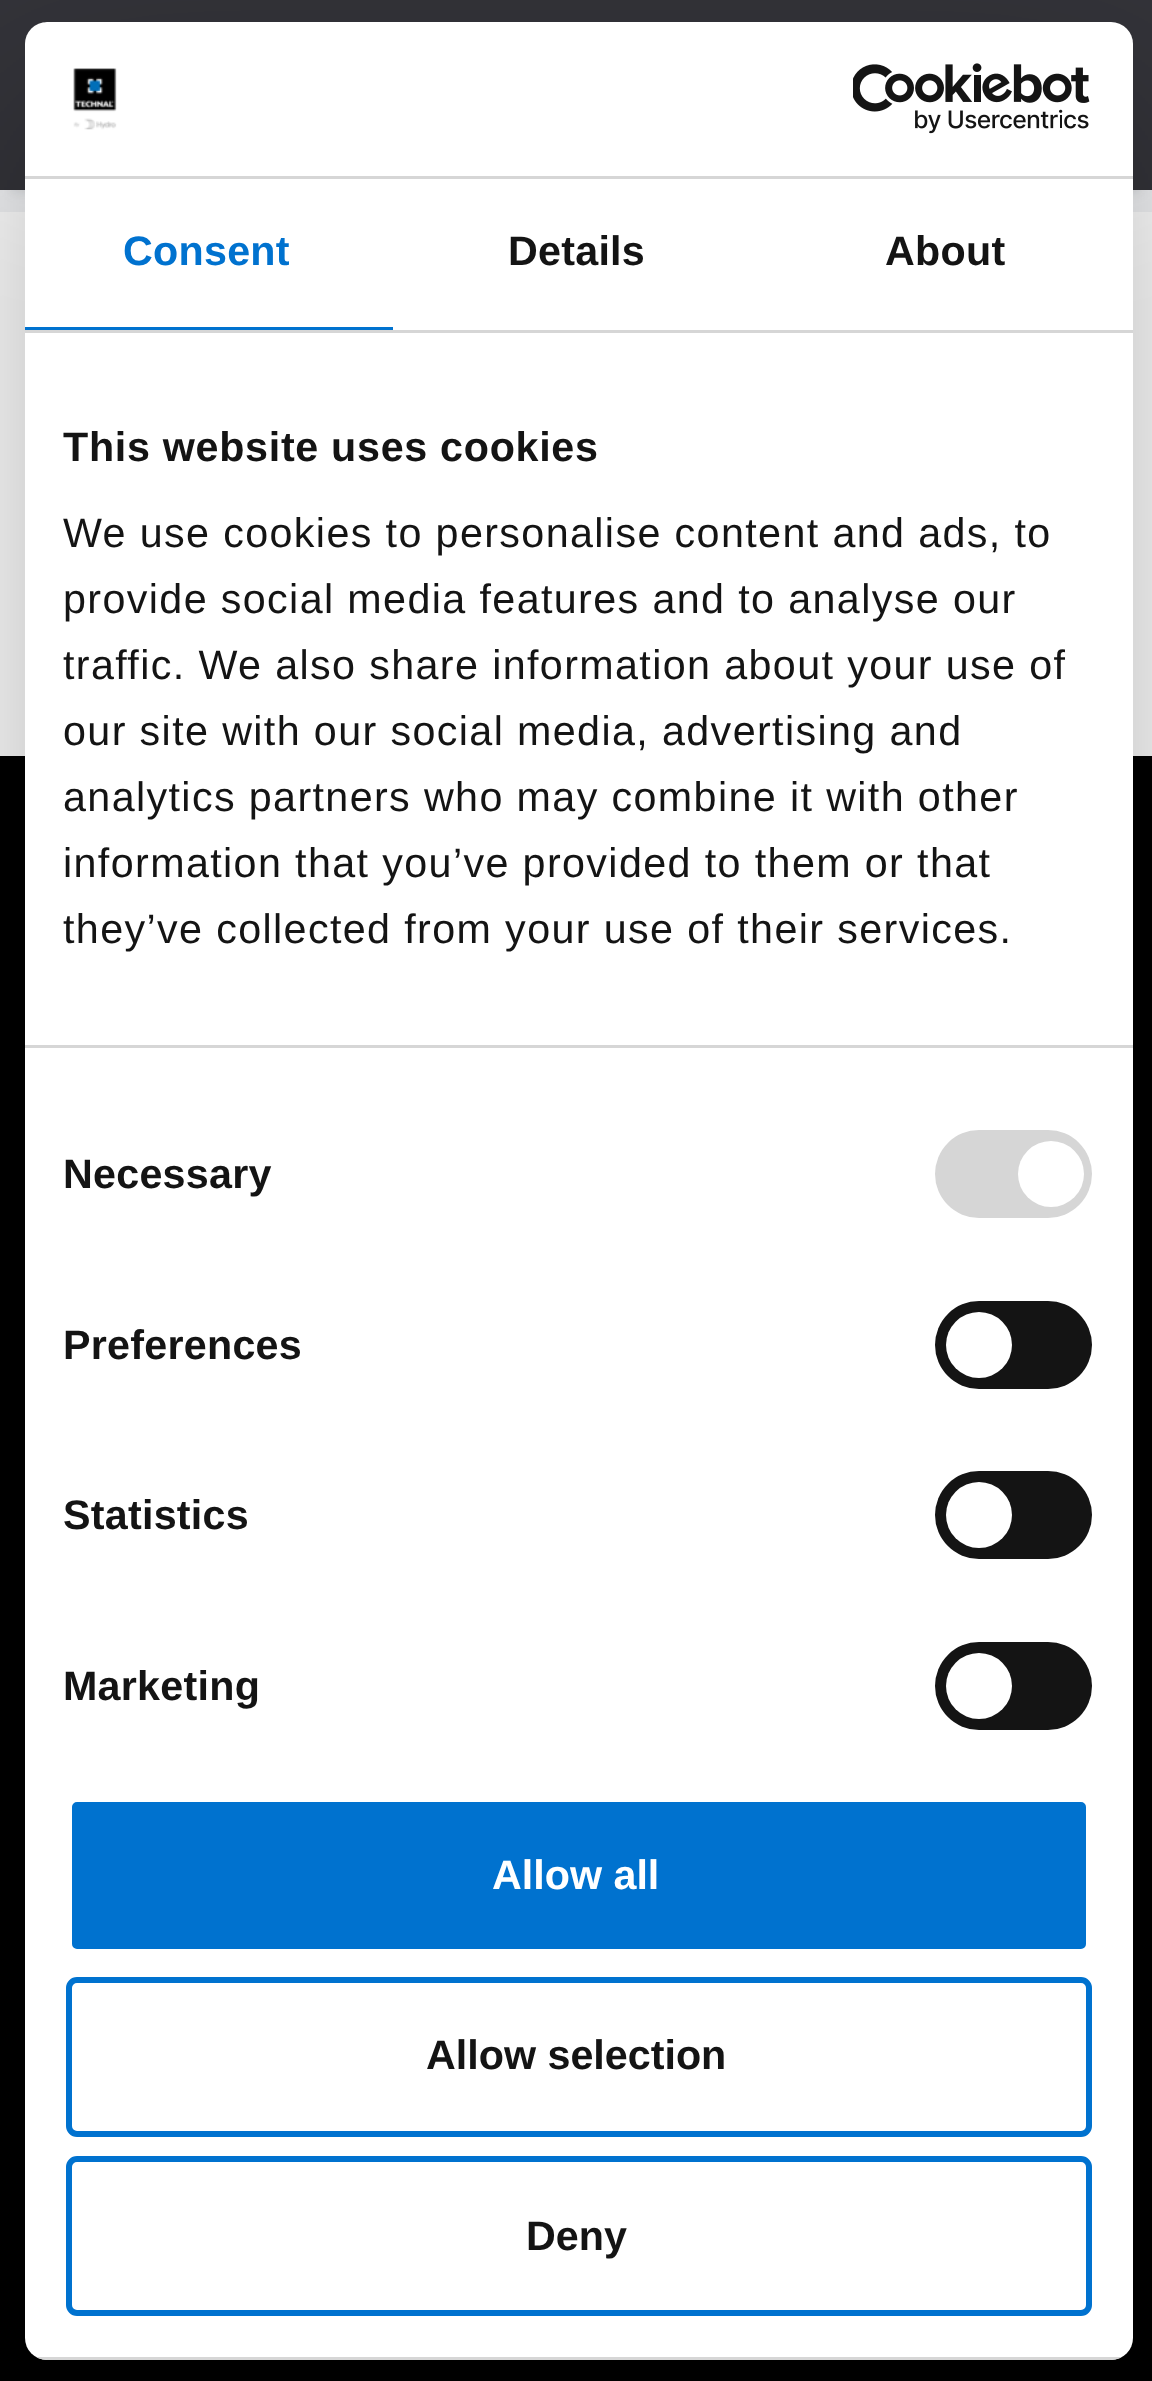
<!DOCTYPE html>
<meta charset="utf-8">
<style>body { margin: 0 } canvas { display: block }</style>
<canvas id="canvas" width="1152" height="2381"></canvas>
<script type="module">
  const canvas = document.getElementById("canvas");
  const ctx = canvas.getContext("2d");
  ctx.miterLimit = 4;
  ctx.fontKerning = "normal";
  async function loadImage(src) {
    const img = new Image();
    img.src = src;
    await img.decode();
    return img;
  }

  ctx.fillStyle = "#ffffff";
  ctx.fillRect(0, 0, 1152, 2381);
  ctx.fillStyle = "#f2f3f5";
  ctx.fillRect(0, 190, 1152, 22);
  ctx.fillStyle = "rgba(68, 77, 85, 0.12)";
  ctx.filter = "blur(5.5px)";
  ctx.beginPath();
  ctx.rect(11, 25, 1130, 168);
  ctx.fill();
  ctx.filter = "none";
  ctx.fillStyle = "#333339";
  ctx.fillRect(0, 0, 1152, 190);
  ctx.drawImage(await loadImage("img1.png"), 44, 22, 3, 1);
  ctx.fillStyle = "#000000";
  ctx.fillRect(0, 756, 1152, 1625);
  ctx.save();
  ctx.beginPath();
  ctx.moveTo(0, 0);
  ctx.lineTo(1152, 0);
  ctx.lineTo(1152, 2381);
  ctx.lineTo(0, 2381);
  ctx.closePath();
  ctx.moveTo(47, 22);
  ctx.lineTo(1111, 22);
  ctx.bezierCurveTo(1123, 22, 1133, 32, 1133, 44);
  ctx.lineTo(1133, 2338);
  ctx.bezierCurveTo(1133, 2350, 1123, 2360, 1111, 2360);
  ctx.lineTo(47, 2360);
  ctx.bezierCurveTo(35, 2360, 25, 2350, 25, 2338);
  ctx.lineTo(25, 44);
  ctx.bezierCurveTo(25, 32, 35, 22, 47, 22);
  ctx.closePath();
  ctx.clip("evenodd");
  ctx.fillStyle = "rgba(0, 0, 0, 0.3)";
  ctx.filter = "blur(93.5px)";
  ctx.beginPath();
  ctx.roundRect(25, 110, 1108, 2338, 22);
  ctx.fill();
  ctx.filter = "none";
  ctx.restore();
  ctx.fillStyle = "#ffffff";
  ctx.beginPath();
  ctx.roundRect(25, 22, 1108, 2338, 22);
  ctx.fill();
  ctx.fillStyle = "#d6d6d6";
  ctx.fillRect(25, 176, 1108, 3);
  ctx.drawImage(await loadImage("img2.png"), 73, 68, 44, 62);
  ctx.drawImage(await loadImage("img3.png"), 853, 63, 237, 71);
  ctx.fillRect(25, 330, 1108, 3);
  ctx.fillStyle = "#0072cf";
  ctx.fillRect(25, 327, 368, 3);
  ctx.letterSpacing = "0.25px";
  ctx.font = "bold 41.25px Liberation Sans";
  ctx.fillText("Consent", 123, 265);
  ctx.fillStyle = "#141414";
  ctx.fillText("Details", 508, 265);
  ctx.fillText("About", 885, 265);
  ctx.fillStyle = "#d6d6d6";
  ctx.fillRect(25, 1045, 1108, 3);
  ctx.letterSpacing = "0.7px";
  ctx.fillStyle = "#141414";
  ctx.fillText("This website uses cookies", 63, 461);
  ctx.letterSpacing = "1.38px";
  ctx.font = "41.25px Liberation Sans";
  ctx.fillText("We use cookies to personalise content and ads, to", 63, 547);
  ctx.fillText("provide social media features and to analyse our", 63, 613);
  ctx.fillText("traffic. We also share information about your use of", 63, 679);
  ctx.fillText("our site with our social media, advertising and", 63, 745);
  ctx.fillText("analytics partners who may combine it with other", 63, 811);
  ctx.fillText("information that you’ve provided to them or that", 63, 877);
  ctx.fillText("they’ve collected from your use of their services.", 63, 943);
  ctx.letterSpacing = "0.25px";
  ctx.font = "bold 41.25px Liberation Sans";
  ctx.fillText("Necessary", 63, 1188);
  ctx.fillStyle = "#d6d6d6";
  ctx.beginPath();
  ctx.roundRect(935, 1130, 157, 88, 44);
  ctx.fill();
  ctx.fillStyle = "#ffffff";
  ctx.beginPath();
  ctx.arc(1051, 1174, 33, 0, Math.PI * 2);
  ctx.fill();
  ctx.fillStyle = "#141414";
  ctx.fillText("Preferences", 63, 1359);
  ctx.beginPath();
  ctx.roundRect(935, 1301, 157, 88, 44);
  ctx.fill();
  ctx.fillStyle = "#ffffff";
  ctx.beginPath();
  ctx.arc(979, 1345, 33, 0, Math.PI * 2);
  ctx.fill();
  ctx.fillStyle = "#141414";
  ctx.fillText("Statistics", 63, 1529);
  ctx.beginPath();
  ctx.roundRect(935, 1471, 157, 88, 44);
  ctx.fill();
  ctx.fillStyle = "#ffffff";
  ctx.beginPath();
  ctx.arc(979, 1515, 33, 0, Math.PI * 2);
  ctx.fill();
  ctx.fillStyle = "#141414";
  ctx.fillText("Marketing", 63, 1700);
  ctx.beginPath();
  ctx.roundRect(935, 1642, 157, 88, 44);
  ctx.fill();
  ctx.fillStyle = "#ffffff";
  ctx.beginPath();
  ctx.arc(979, 1686, 33, 0, Math.PI * 2);
  ctx.fill();
  ctx.save();
  ctx.beginPath();
  ctx.roundRect(25, 22, 1108, 2338, 22);
  ctx.clip();
  ctx.fillStyle = "#d6d6d6";
  ctx.fillRect(36, 2357, 1086, 3);
  ctx.restore();
  ctx.fillStyle = "#0072cf";
  ctx.beginPath();
  ctx.roundRect(69, 1799, 1020, 153, 8);
  ctx.fill();
  ctx.strokeStyle = "#ffffff";
  ctx.lineWidth = 6;
  ctx.stroke();
  ctx.letterSpacing = "0px";
  ctx.fillStyle = "#ffffff";
  ctx.fillText("Allow all", 492, 1889);
  ctx.beginPath();
  ctx.roundRect(69, 1980, 1020, 154, 8);
  ctx.strokeStyle = "#0072cf";
  ctx.stroke();
  ctx.fillStyle = "#141414";
  ctx.fillText("Allow selection", 426, 2069);
  ctx.beginPath();
  ctx.roundRect(69, 2159, 1020, 154, 8);
  ctx.stroke();
  ctx.fillText("Deny", 526, 2250);
</script>
